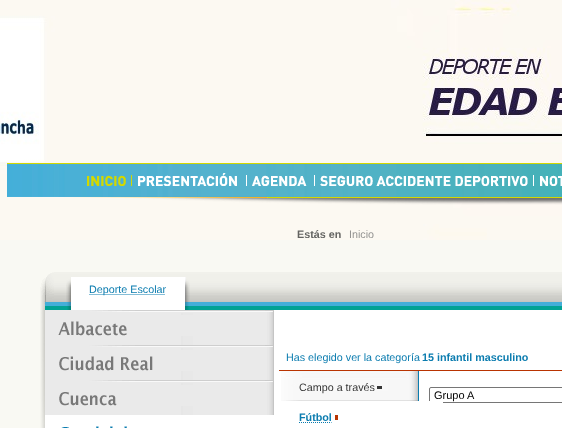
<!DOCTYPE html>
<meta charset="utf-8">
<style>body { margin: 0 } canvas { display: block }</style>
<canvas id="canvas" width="562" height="428"></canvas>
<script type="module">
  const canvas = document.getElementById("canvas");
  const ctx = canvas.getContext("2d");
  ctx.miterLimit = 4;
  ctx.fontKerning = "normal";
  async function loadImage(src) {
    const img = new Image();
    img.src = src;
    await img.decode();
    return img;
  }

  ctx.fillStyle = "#f9f9f3";
  ctx.fillRect(0, 0, 562, 428);
  ctx.drawImage(await loadImage("img1.png"), 0, 0, 562, 240);
  ctx.drawImage(await loadImage("img2.png"), 7, 163, 555, 42);
  ctx.drawImage(await loadImage("img3.png"), 87, 175, 45, 11);
  ctx.drawImage(await loadImage("img4.png"), 138, 173, 99, 13);
  ctx.drawImage(await loadImage("img5.png"), 246, 175, 61, 11);
  ctx.drawImage(await loadImage("img6.png"), 314, 175, 220, 11);
  ctx.drawImage(await loadImage("img7.png"), 540, 175, 22, 11);
  ctx.font = "bold 10.75px Liberation Sans";
  ctx.fillStyle = "#646461";
  ctx.fillText("Estás en", 297, 238);
  ctx.font = "10.75px Liberation Sans";
  ctx.fillStyle = "#949492";
  ctx.fillText("Inicio", 349, 238);
  ctx.fillStyle = "#ffffff";
  ctx.fillRect(274, 310, 288, 118);
  ctx.drawImage(await loadImage("img8.png"), 37, 272, 237, 156);
  ctx.drawImage(await loadImage("img9.png"), 40, 272, 5, 156);
  ctx.drawImage(await loadImage("img10.png"), 45, 272, 517, 38);
  ctx.drawImage(await loadImage("img11.png"), 45, 272, 9, 30);
  ctx.drawImage(await loadImage("img12.png"), 66, 277, 124, 33);
  ctx.beginPath();
  ctx.moveTo(89.5, 294.5);
  ctx.lineTo(165.5, 294.5);
  ctx.strokeStyle = "#0b7caf";
  ctx.setLineDash([1, 1]);
  ctx.stroke();
  ctx.fillStyle = "#0b7caf";
  ctx.fillText("Deporte Escolar", 89, 293);
  ctx.drawImage(await loadImage("img13.png"), 58, 310, 215, 26);
  ctx.drawImage(await loadImage("img14.png"), 59, 345, 214, 26);
  ctx.drawImage(await loadImage("img15.png"), 59, 380, 214, 26);
  ctx.drawImage(await loadImage("img16.png"), 45, 415, 229, 13);
  ctx.fillStyle = "#b93401";
  ctx.fillRect(279, 370, 283, 1);
  ctx.fillStyle = "#0b7caf";
  ctx.fillText("Has elegido ver la categoría", 286, 361);
  ctx.font = "bold 10.75px Liberation Sans";
  ctx.fillText("15 infantil masculino", 422, 361);
  ctx.drawImage(await loadImage("img17.png"), 281, 371, 137, 30);
  ctx.fillRect(418, 371, 1, 30);
  ctx.font = "10.75px Liberation Sans";
  ctx.fillStyle = "#363636";
  ctx.fillText("Campo a través", 299, 391);
  ctx.fillRect(377, 386, 5, 3);
  ctx.beginPath();
  ctx.roundRect(429.5, 387.5, 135, 15, 1.5);
  ctx.strokeStyle = "#767676";
  ctx.setLineDash([]);
  ctx.stroke();
  ctx.font = "11px Liberation Sans";
  ctx.fillStyle = "#000000";
  ctx.fillText("Grupo A", 434, 399);
  ctx.fillStyle = "#ffffff";
  ctx.fillRect(429, 401, 14, 2);
  ctx.font = "bold 10.75px Liberation Sans";
  ctx.fillStyle = "#0b7caf";
  ctx.fillText("Fútbol", 299, 421);
  ctx.beginPath();
  ctx.moveTo(299, 422.5);
  ctx.lineTo(331.5, 422.5);
  ctx.strokeStyle = "#0b7caf";
  ctx.setLineDash([1, 1]);
  ctx.stroke();
  ctx.fillStyle = "#b93401";
  ctx.fillRect(335, 415, 3, 5);
</script>
